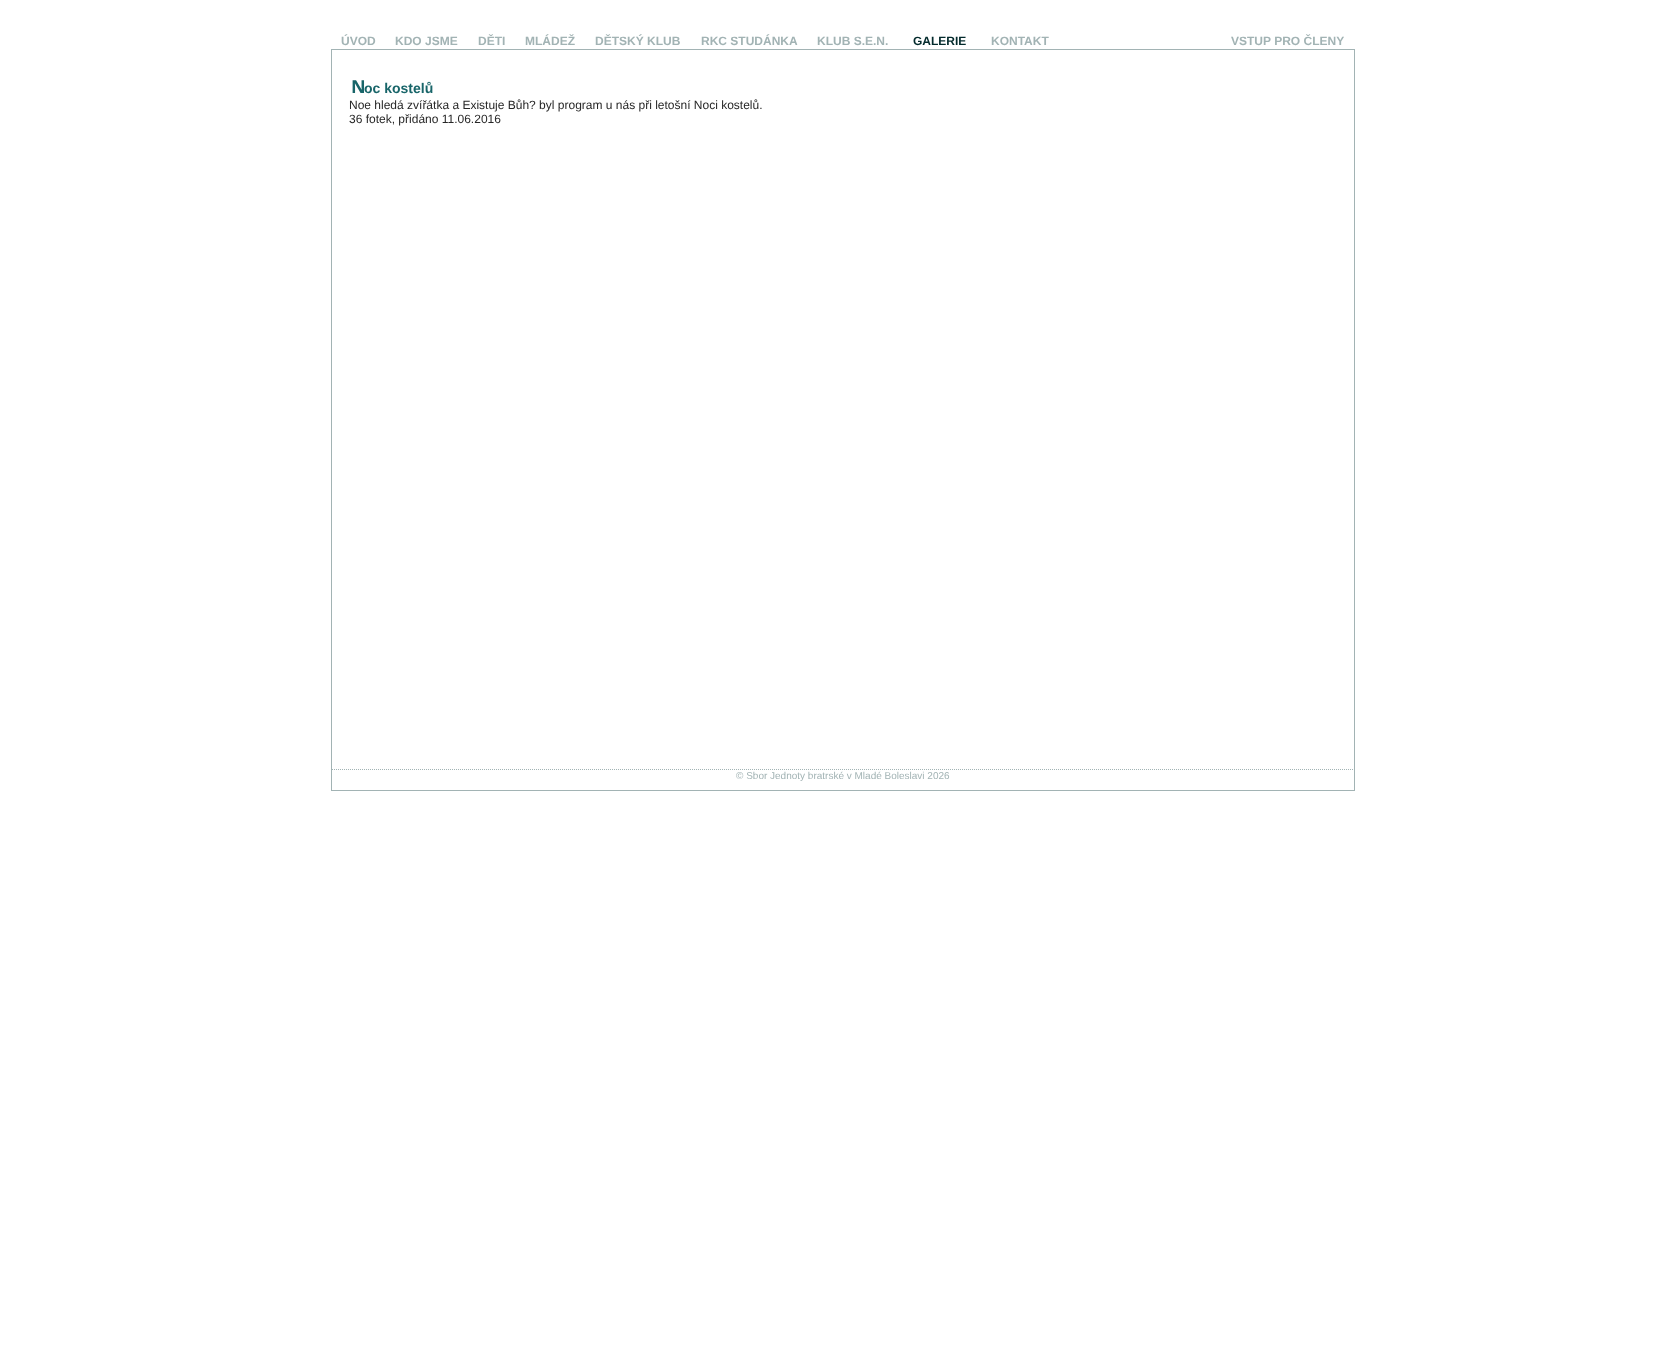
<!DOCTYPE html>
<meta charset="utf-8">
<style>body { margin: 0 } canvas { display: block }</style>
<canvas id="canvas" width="1675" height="1371"></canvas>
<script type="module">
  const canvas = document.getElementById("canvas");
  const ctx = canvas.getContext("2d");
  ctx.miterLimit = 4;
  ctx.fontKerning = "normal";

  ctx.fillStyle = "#ffffff";
  ctx.fillRect(0, 0, 1675, 1371);
  ctx.font = "bold 12px Liberation Sans";
  ctx.fillStyle = "#a2b3b4";
  ctx.fillText("ÚVOD", 341, 45);
  ctx.fillText("KDO JSME", 395, 45);
  ctx.fillText("DĚTI", 478, 45);
  ctx.fillText("MLÁDEŽ", 525, 45);
  ctx.fillText("DĚTSKÝ KLUB", 595, 45);
  ctx.fillText("RKC STUDÁNKA", 701, 45);
  ctx.fillText("KLUB S.E.N.", 817, 45);
  ctx.fillStyle = "#032a2c";
  ctx.fillText("GALERIE", 913, 45);
  ctx.fillStyle = "#a2b3b4";
  ctx.fillText("KONTAKT", 991, 45);
  ctx.fillText("VSTUP PRO ČLENY", 1231, 45);
  ctx.strokeStyle = "#a2b3b4";
  ctx.strokeRect(331.5, 49.5, 1023, 741);
  ctx.font = "bold 18px Noto Sans";
  ctx.fillStyle = "#186569";
  ctx.fillText("N", 351, 93);
  ctx.font = "bold 14px Liberation Sans";
  ctx.fillText("oc kostelů", 364, 93);
  ctx.font = "12px Liberation Sans";
  ctx.fillStyle = "#272727";
  ctx.fillText("Noe hledá zvířátka a Existuje Bůh? byl program u nás při letošní Noci kostelů.", 349, 109);
  ctx.fillText("36 fotek, přidáno 11.06.2016", 349, 123);
  ctx.beginPath();
  ctx.moveTo(332, 769.5);
  ctx.lineTo(1354, 769.5);
  ctx.setLineDash([1, 1]);
  ctx.stroke();
  ctx.font = "10px Liberation Sans";
  ctx.fillStyle = "#a2b3b4";
  ctx.fillText("© Sbor Jednoty bratrské v Mladé Boleslavi 2026", 736, 779);
</script>
